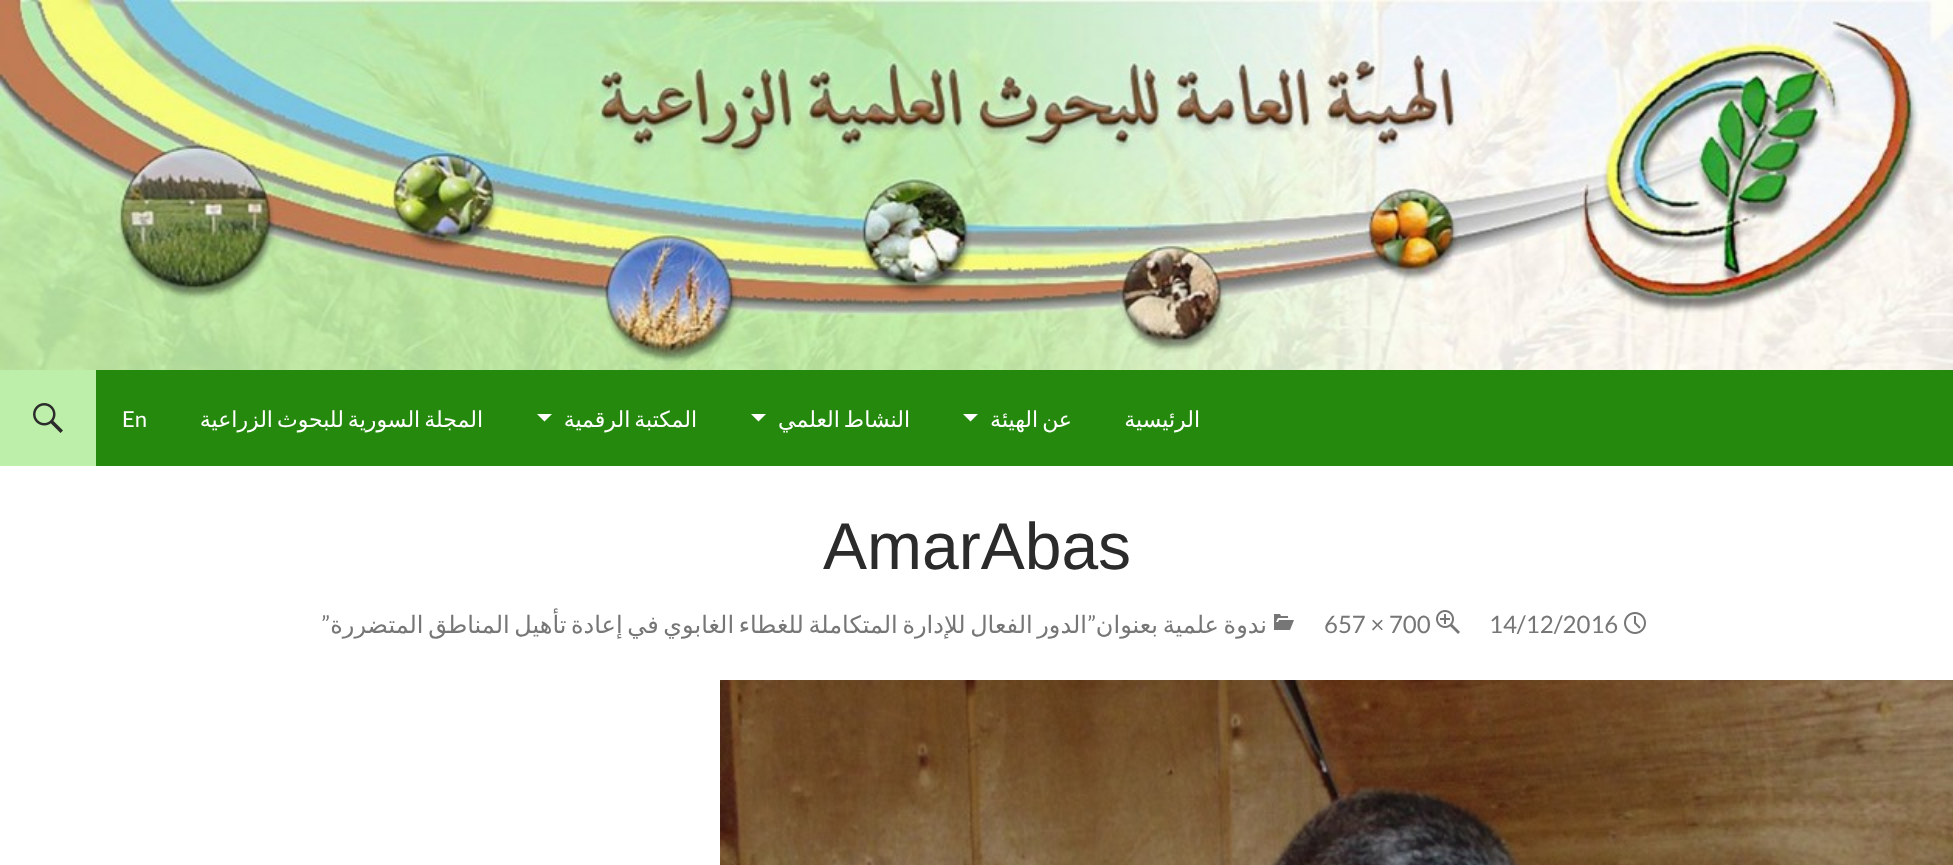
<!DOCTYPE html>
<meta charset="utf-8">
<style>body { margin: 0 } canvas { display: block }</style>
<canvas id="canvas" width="1953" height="865"></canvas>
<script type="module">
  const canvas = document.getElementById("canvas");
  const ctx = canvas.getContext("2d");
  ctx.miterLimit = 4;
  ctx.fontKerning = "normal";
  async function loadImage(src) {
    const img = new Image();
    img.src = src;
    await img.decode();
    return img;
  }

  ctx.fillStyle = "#ffffff";
  ctx.fillRect(0, 0, 1953, 865);
  ctx.drawImage(await loadImage("img1.png"), 0, 0, 1953, 370);
  ctx.fillStyle = "#24890d";
  ctx.fillRect(96, 370, 1857, 96);
  ctx.direction = "rtl";
  ctx.font = "22px DejaVu Sans";
  ctx.fillStyle = "#ffffff";
  ctx.fillText("الرئيسية", 1200, 427);
  ctx.wordSpacing = "-3px";
  ctx.fillText("عن الهيئة", 1072, 427);
  ctx.beginPath();
  ctx.moveTo(963, 414);
  ctx.lineTo(970.5, 421.5);
  ctx.lineTo(978, 414);
  ctx.closePath();
  ctx.fill();
  ctx.fillText("النشاط العلمي", 910, 427);
  ctx.beginPath();
  ctx.moveTo(751, 414);
  ctx.lineTo(758.5, 421.5);
  ctx.lineTo(766, 414);
  ctx.closePath();
  ctx.fill();
  ctx.fillText("المكتبة الرقمية", 697, 427);
  ctx.beginPath();
  ctx.moveTo(537, 414);
  ctx.lineTo(544.5, 421.5);
  ctx.lineTo(552, 414);
  ctx.closePath();
  ctx.fill();
  ctx.fillText("المجلة السورية للبحوث الزراعية", 483, 427);
  ctx.wordSpacing = "0px";
  ctx.direction = "ltr";
  ctx.font = "22px Lato";
  ctx.fillText("En", 122, 427);
  ctx.fillStyle = "#bdefaa";
  ctx.fillRect(0, 370, 96, 96);
  ctx.drawImage(await loadImage("img2.png"), 33, 403, 30, 30);
  ctx.font = "66px Liberation Sans";
  ctx.fillStyle = "#2b2b2b";
  ctx.fillText("AmarAbas", 823, 569);
  ctx.drawImage(await loadImage("img3.png"), 1624, 612, 22, 22);
  ctx.font = "24px Lato";
  ctx.fillStyle = "#767676";
  ctx.fillText("14/12/2016", 1489, 633);
  ctx.drawImage(await loadImage("img4.png"), 1436, 610, 24, 24);
  ctx.fillText("657 × 700", 1324, 633);
  ctx.wordSpacing = "-3px";
  ctx.direction = "rtl";
  ctx.font = "24px DejaVu Sans";
  ctx.fillText("الدور الفعال للإدارة المتكاملة للغطاء الغابوي في إعادة تأهيل المناطق المتضررة", 1087, 633);
  ctx.wordSpacing = "0px";
  ctx.font = "24px Lato";
  ctx.fillText("”", 330, 633);
  ctx.drawImage(await loadImage("img5.png"), 1274, 614, 20, 16);
  ctx.wordSpacing = "-3px";
  ctx.font = "24px DejaVu Sans";
  ctx.fillText("ندوة علمية بعنوان", 1267, 633);
  ctx.wordSpacing = "0px";
  ctx.font = "24px Lato";
  ctx.fillText("”", 1096, 633);
  ctx.drawImage(await loadImage("img6.png"), 720, 680, 1233, 185);
</script>
